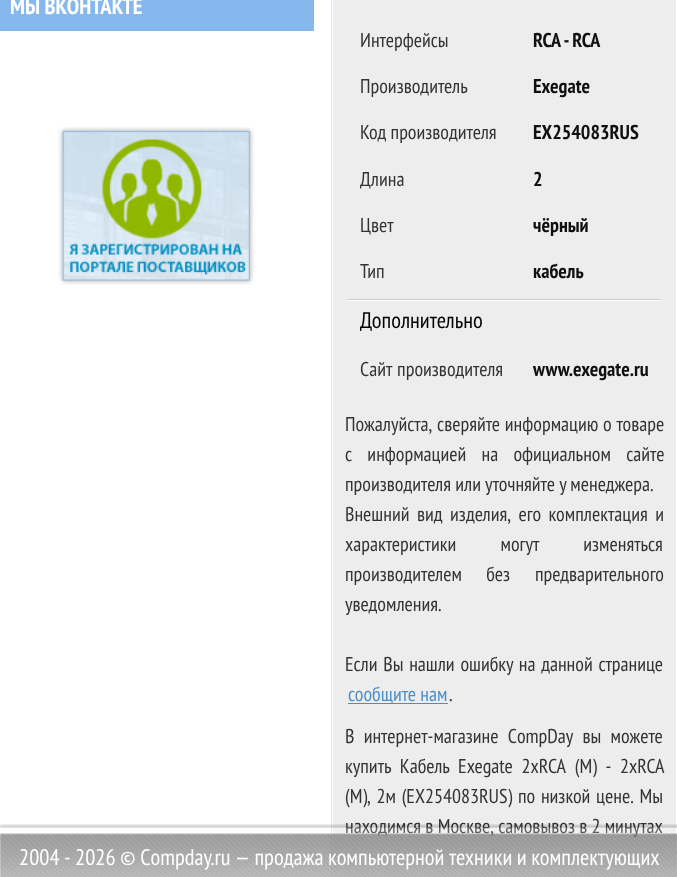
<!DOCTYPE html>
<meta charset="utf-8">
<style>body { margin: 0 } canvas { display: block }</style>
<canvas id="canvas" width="677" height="877"></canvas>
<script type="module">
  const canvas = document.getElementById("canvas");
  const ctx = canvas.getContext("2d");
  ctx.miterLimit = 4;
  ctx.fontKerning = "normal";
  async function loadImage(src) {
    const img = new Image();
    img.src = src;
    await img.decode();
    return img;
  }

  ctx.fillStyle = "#ffffff";
  ctx.fillRect(0, 0, 677, 877);
  ctx.fillStyle = "#87b8ed";
  ctx.beginPath();
  ctx.moveTo(1, -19);
  ctx.lineTo(312, -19);
  ctx.lineTo(312, 31);
  ctx.lineTo(314, 31);
  ctx.lineTo(314, -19);
  ctx.closePath();
  ctx.fill();
  ctx.fillRect(0, 0, 312, 31);
  ctx.font = "bold 22.5px PT Sans Narrow";
  ctx.fillStyle = "#ffffff";
  ctx.fillText("МЫ ВКОНТАКТЕ", 10, 14);
  ctx.drawImage(await loadImage("img1.png"), 58, 127, 196, 158);
  ctx.strokeStyle = "#e1e1e1";
  ctx.strokeRect(331.5, -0.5, 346, 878);
  ctx.fillStyle = "#ededed";
  ctx.fillRect(333, 0, 343, 877);
  ctx.font = "20px PT Sans Narrow";
  ctx.fillStyle = "#333333";
  ctx.fillText("Интерфейсы", 360, 47);
  ctx.font = "bold 20px PT Sans Narrow";
  ctx.fillStyle = "#101010";
  ctx.fillText("RCA - RCA", 533, 47);
  ctx.font = "20px PT Sans Narrow";
  ctx.fillStyle = "#333333";
  ctx.fillText("Производитель", 360, 93);
  ctx.font = "bold 20px PT Sans Narrow";
  ctx.fillStyle = "#101010";
  ctx.fillText("Exegate", 533, 93);
  ctx.font = "20px PT Sans Narrow";
  ctx.fillStyle = "#333333";
  ctx.fillText("Код производителя", 360, 139);
  ctx.font = "bold 20px PT Sans Narrow";
  ctx.fillStyle = "#101010";
  ctx.fillText("EX254083RUS", 533, 139);
  ctx.font = "20px PT Sans Narrow";
  ctx.fillStyle = "#333333";
  ctx.fillText("Длина", 360, 186);
  ctx.font = "bold 20px PT Sans Narrow";
  ctx.fillStyle = "#101010";
  ctx.fillText("2", 533, 186);
  ctx.font = "20px PT Sans Narrow";
  ctx.fillStyle = "#333333";
  ctx.fillText("Цвет", 360, 232);
  ctx.font = "bold 20px PT Sans Narrow";
  ctx.fillStyle = "#101010";
  ctx.fillText("чёрный", 533, 232);
  ctx.font = "20px PT Sans Narrow";
  ctx.fillStyle = "#333333";
  ctx.fillText("Тип", 360, 278);
  ctx.font = "bold 20px PT Sans Narrow";
  ctx.fillStyle = "#101010";
  ctx.fillText("кабель", 533, 278);
  ctx.fillStyle = "#fefefe";
  ctx.fillRect(348, 300, 313, 1);
  ctx.fillStyle = "#cccccc";
  ctx.fillRect(348, 299, 313, 1);
  ctx.font = "22.5px PT Sans Narrow";
  ctx.fillStyle = "#000000";
  ctx.fillText("Дополнительно", 360, 328);
  ctx.wordSpacing = "1px";
  ctx.font = "20px PT Sans Narrow";
  ctx.fillStyle = "#333333";
  ctx.fillText("Сайт производителя", 360, 376);
  ctx.wordSpacing = "0px";
  ctx.font = "bold 20px PT Sans Narrow";
  ctx.fillStyle = "#101010";
  ctx.fillText("www.exegate.ru", 533, 376);
  ctx.wordSpacing = "0.5px";
  ctx.font = "20px PT Sans Narrow";
  ctx.fillStyle = "#333333";
  ctx.fillText("Пожалуйста, сверяйте информацию о товаре", 345, 431);
  ctx.wordSpacing = "11px";
  ctx.fillText("с информацией на официальном сайте", 345, 461);
  ctx.wordSpacing = "0px";
  ctx.fillText("производителя или уточняйте у менеджера.", 345, 491);
  ctx.wordSpacing = "3.25px";
  ctx.fillText("Внешний вид изделия, его комплектация и", 345, 521);
  ctx.wordSpacing = "40px";
  ctx.fillText("характеристики могут изменяться", 345, 551);
  ctx.wordSpacing = "20px";
  ctx.fillText("производителем без", 345, 581);
  ctx.wordSpacing = "0px";
  ctx.fillText("предварительного", 535, 581);
  ctx.fillText("уведомления.", 345, 611);
  ctx.wordSpacing = "1.5px";
  ctx.fillText("Если Вы нашли ошибку на данной странице", 345, 671);
  ctx.fillStyle = "#4e8ec2";
  ctx.fillRect(348, 703, 100, 1);
  ctx.wordSpacing = "0px";
  ctx.fillText("сообщите нам", 348, 701);
  ctx.fillStyle = "#333333";
  ctx.fillText(".", 449, 701);
  ctx.wordSpacing = "5px";
  ctx.fillText("В интернет-магазине СompDay вы можете", 345, 743);
  ctx.wordSpacing = "4.5px";
  ctx.fillText("купить Кабель Exegate 2xRCA (M) - 2xRCA", 345, 773);
  ctx.wordSpacing = "1.5px";
  ctx.fillText("(M), 2м (EX254083RUS) по низкой цене. Мы", 345, 803);
  ctx.wordSpacing = "0px";
  ctx.fillText("находимся в Москве, самовывоз в 2 минутах", 345, 833);
  ctx.drawImage(await loadImage("img2.png"), 0, 824, 677, 53);
  ctx.wordSpacing = "-0.25px";
  ctx.font = "22.5px PT Sans Narrow";
  ctx.fillStyle = "#ffffff";
  ctx.fillText("2004 - 2026 © Сompday.ru — продажа компьютерной техники и комплектующих", 19, 865);
</script>
